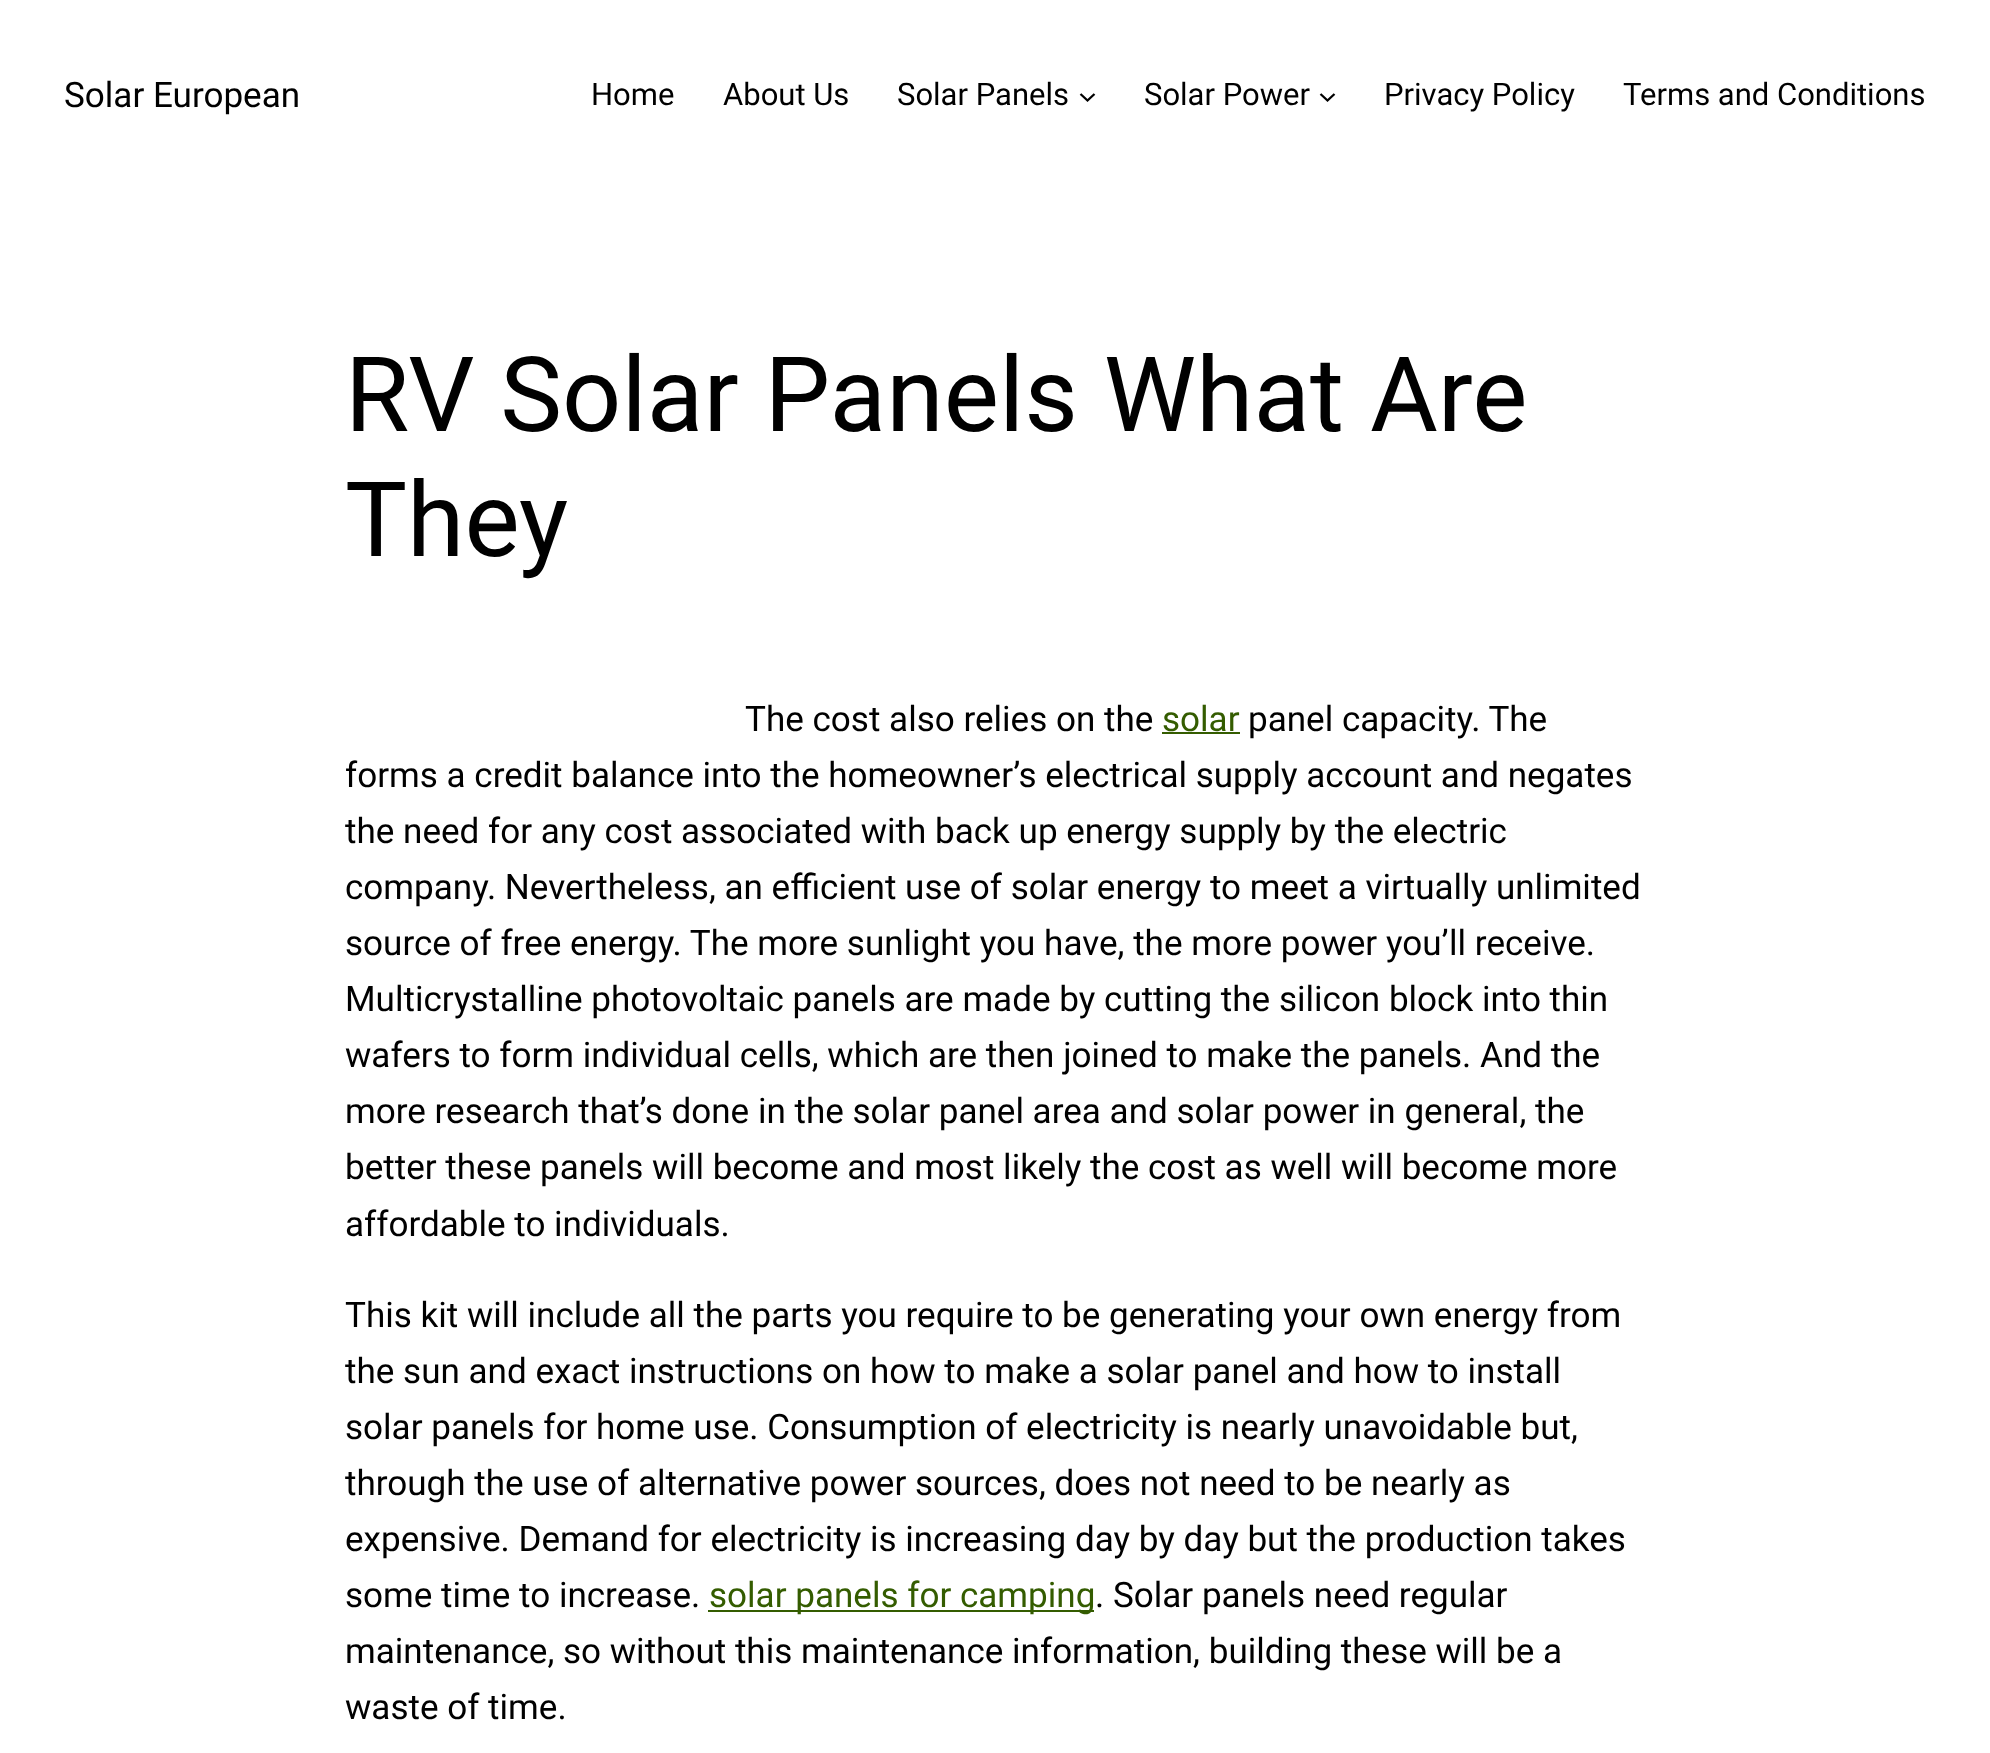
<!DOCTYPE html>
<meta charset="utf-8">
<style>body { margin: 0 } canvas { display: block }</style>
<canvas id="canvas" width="1990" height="1753"></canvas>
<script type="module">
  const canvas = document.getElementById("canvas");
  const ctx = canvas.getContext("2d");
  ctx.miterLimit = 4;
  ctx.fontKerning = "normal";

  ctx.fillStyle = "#ffffff";
  ctx.fillRect(0, 0, 1990, 1753);
  ctx.font = "35.05px Roboto";
  ctx.fillStyle = "#000000";
  ctx.fillText("Solar European", 64, 107);
  ctx.font = "31px Roboto";
  ctx.fillText("Home", 591, 105);
  ctx.fillText("About Us", 723, 105);
  ctx.fillText("Solar Panels", 897, 105);
  ctx.beginPath();
  ctx.moveTo(1080.5, 94);
  ctx.lineTo(1087.5, 100.5);
  ctx.lineTo(1094.5, 94);
  ctx.strokeStyle = "#000000";
  ctx.lineWidth = 2.3;
  ctx.stroke();
  ctx.fillText("Solar Power", 1144, 105);
  ctx.beginPath();
  ctx.moveTo(1320.5, 94);
  ctx.lineTo(1327.5, 100.5);
  ctx.lineTo(1334.5, 94);
  ctx.stroke();
  ctx.fillText("Privacy Policy", 1384, 105);
  ctx.fillText("Terms and Conditions", 1623, 105);
  ctx.font = "104.1px Roboto";
  ctx.fillText("RV Solar Panels What Are", 345, 431);
  ctx.fillText("They", 345, 556);
  ctx.font = "35.05px Roboto";
  ctx.fillText("The cost also relies on the", 745, 731);
  ctx.fillStyle = "#345c00";
  ctx.fillText("solar", 1162, 731);
  ctx.fillRect(1162, 732, 78, 2);
  ctx.fillStyle = "#000000";
  ctx.fillText("panel capacity. The", 1248, 731);
  ctx.fillText("forms a credit balance into the homeowner’s electrical supply account and negates", 345, 787);
  ctx.fillText("the need for any cost associated with back up energy supply by the electric", 345, 843);
  ctx.fillText("company. Nevertheless, an efficient use of solar energy to meet a virtually unlimited", 345, 899);
  ctx.fillText("source of free energy. The more sunlight you have, the more power you’ll receive.", 345, 955);
  ctx.fillText("Multicrystalline photovoltaic panels are made by cutting the silicon block into thin", 345, 1011);
  ctx.fillText("wafers to form individual cells, which are then joined to make the panels. And the", 345, 1067);
  ctx.fillText("more research that’s done in the solar panel area and solar power in general, the", 345, 1123);
  ctx.fillText("better these panels will become and most likely the cost as well will become more", 345, 1179);
  ctx.fillText("affordable to individuals.", 345, 1236);
  ctx.fillText("This kit will include all the parts you require to be generating your own energy from", 345, 1327);
  ctx.fillText("the sun and exact instructions on how to make a solar panel and how to install", 345, 1383);
  ctx.fillText("solar panels for home use. Consumption of electricity is nearly unavoidable but,", 345, 1439);
  ctx.fillText("through the use of alternative power sources, does not need to be nearly as", 345, 1495);
  ctx.fillText("expensive. Demand for electricity is increasing day by day but the production takes", 345, 1551);
  ctx.fillText("some time to increase.", 345, 1607);
  ctx.fillStyle = "#345c00";
  ctx.fillRect(708, 1610, 386, 2);
  ctx.fillText("solar panels for camping", 709, 1607);
  ctx.fillStyle = "#000000";
  ctx.fillText(". Solar panels need regular", 1095, 1607);
  ctx.fillText("maintenance, so without this maintenance information, building these will be a", 345, 1663);
  ctx.fillText("waste of time.", 345, 1719);
</script>
